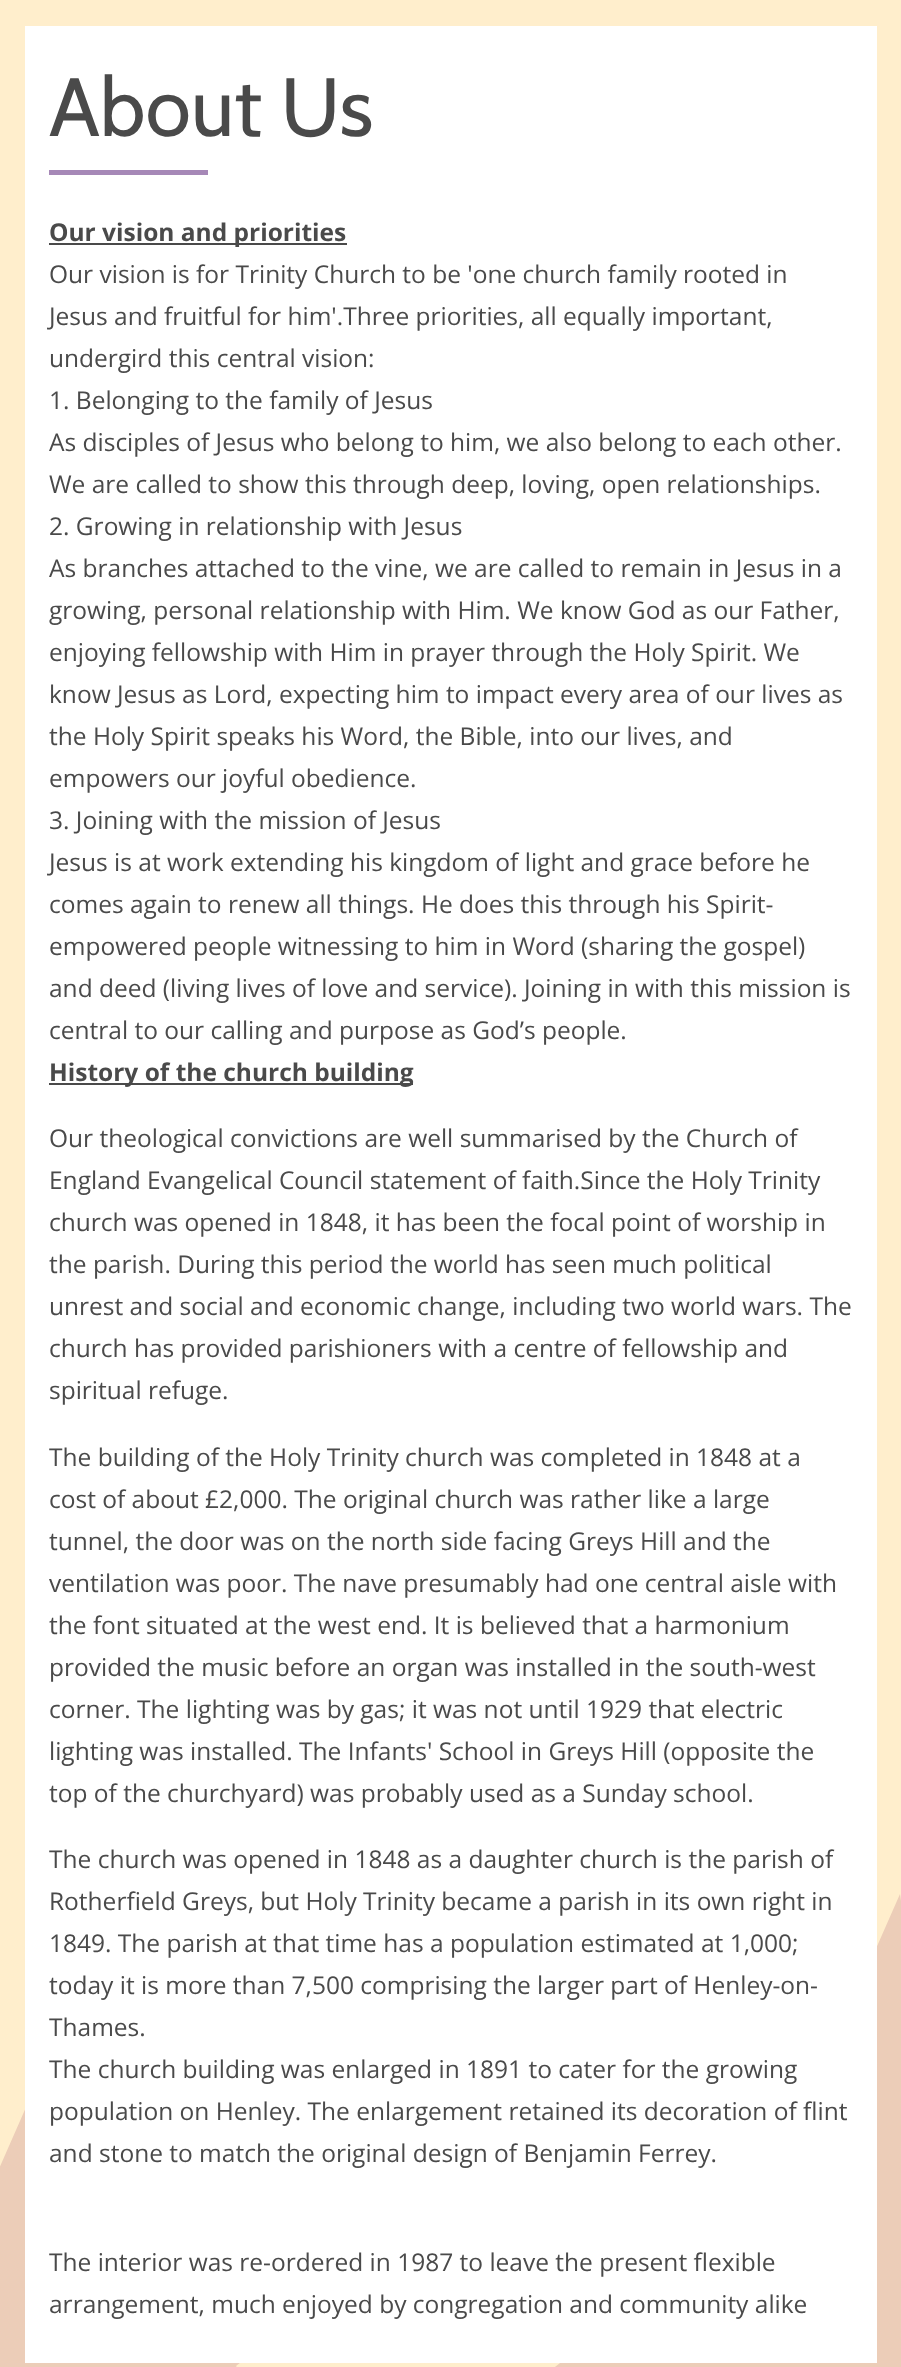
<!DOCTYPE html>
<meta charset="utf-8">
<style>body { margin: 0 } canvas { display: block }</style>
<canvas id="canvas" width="901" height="2367"></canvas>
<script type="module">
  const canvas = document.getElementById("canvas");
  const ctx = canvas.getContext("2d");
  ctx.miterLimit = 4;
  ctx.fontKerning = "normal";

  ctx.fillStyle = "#ffeecc";
  ctx.fillRect(0, 0, 901, 2367);
  ctx.fillStyle = "#eccdb8";
  ctx.beginPath();
  ctx.moveTo(797, 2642);
  ctx.lineTo(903, 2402);
  ctx.lineTo(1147, 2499);
  ctx.lineTo(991, 2288);
  ctx.lineTo(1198, 2125);
  ctx.lineTo(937, 2154);
  ctx.lineTo(900, 1894);
  ctx.lineTo(794, 2135);
  ctx.lineTo(550, 2037);
  ctx.lineTo(705, 2249);
  ctx.lineTo(499, 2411);
  ctx.lineTo(760, 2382);
  ctx.closePath();
  ctx.fill();
  ctx.beginPath();
  ctx.moveTo(-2, 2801);
  ctx.lineTo(128, 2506);
  ctx.lineTo(427, 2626);
  ctx.lineTo(236, 2366);
  ctx.lineTo(490, 2167);
  ctx.lineTo(170, 2202);
  ctx.lineTo(124, 1884);
  ctx.lineTo(-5, 2178);
  ctx.lineTo(-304, 2058);
  ctx.lineTo(-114, 2318);
  ctx.lineTo(-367, 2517);
  ctx.lineTo(-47, 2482);
  ctx.closePath();
  ctx.fill();
  ctx.fillStyle = "#ffffff";
  ctx.fillRect(25, 26, 852, 2337);
  ctx.font = "82.5px Cabin";
  ctx.fillStyle = "#4a4a4a";
  ctx.fillText("About Us", 49, 136);
  ctx.fillStyle = "#a688b7";
  ctx.fillRect(49, 170, 159, 5);
  ctx.fillStyle = "#4a4a4a";
  ctx.fillRect(49, 243, 298, 2);
  ctx.font = "bold 24.5px Open Sans";
  ctx.fillText("Our vision and priorities", 49, 241);
  ctx.font = "24.5px Open Sans";
  ctx.fillText("Our vision is for Trinity Church to be 'one church family rooted in", 49, 283);
  ctx.fillText("Jesus and fruitful for him'.Three priorities, all equally important,", 49, 325);
  ctx.fillText("undergird this central vision:", 49, 367);
  ctx.fillText("1. Belonging to the family of Jesus", 49, 409);
  ctx.fillText("As disciples of Jesus who belong to him, we also belong to each other.", 49, 451);
  ctx.fillText("We are called to show this through deep, loving, open relationships.", 49, 493);
  ctx.fillText("2. Growing in relationship with Jesus", 49, 535);
  ctx.fillText("As branches attached to the vine, we are called to remain in Jesus in a", 49, 577);
  ctx.fillText("growing, personal relationship with Him. We know God as our Father,", 49, 619);
  ctx.fillText("enjoying fellowship with Him in prayer through the Holy Spirit. We", 49, 661);
  ctx.fillText("know Jesus as Lord, expecting him to impact every area of our lives as", 49, 703);
  ctx.fillText("the Holy Spirit speaks his Word, the Bible, into our lives, and", 49, 745);
  ctx.fillText("empowers our joyful obedience.", 49, 787);
  ctx.fillText("3. Joining with the mission of Jesus", 49, 829);
  ctx.fillText("Jesus is at work extending his kingdom of light and grace before he", 49, 871);
  ctx.fillText("comes again to renew all things. He does this through his Spirit-", 49, 913);
  ctx.fillText("empowered people witnessing to him in Word (sharing the gospel)", 49, 955);
  ctx.fillText("and deed (living lives of love and service). Joining in with this mission is", 49, 997);
  ctx.fillText("central to our calling and purpose as God’s people.", 49, 1039);
  ctx.fillRect(49, 1083, 364, 2);
  ctx.font = "bold 24.5px Open Sans";
  ctx.fillText("History of the church building", 49, 1081);
  ctx.font = "24.5px Open Sans";
  ctx.fillText("Our theological convictions are well summarised by the Church of", 49, 1147);
  ctx.fillText("England Evangelical Council statement of faith.Since the Holy Trinity", 49, 1189);
  ctx.fillText("church was opened in 1848, it has been the focal point of worship in", 49, 1231);
  ctx.fillText("the parish. During this period the world has seen much political", 49, 1273);
  ctx.fillText("unrest and social and economic change, including two world wars. The", 49, 1315);
  ctx.fillText("church has provided parishioners with a centre of fellowship and", 49, 1357);
  ctx.fillText("spiritual refuge.", 49, 1399);
  ctx.fillText("The building of the Holy Trinity church was completed in 1848 at a", 49, 1466);
  ctx.fillText("cost of about £2,000. The original church was rather like a large", 49, 1508);
  ctx.fillText("tunnel, the door was on the north side facing Greys Hill and the", 49, 1550);
  ctx.fillText("ventilation was poor. The nave presumably had one central aisle with", 49, 1592);
  ctx.fillText("the font situated at the west end. It is believed that a harmonium", 49, 1634);
  ctx.fillText("provided the music before an organ was installed in the south-west", 49, 1676);
  ctx.fillText("corner. The lighting was by gas; it was not until 1929 that electric", 49, 1718);
  ctx.fillText("lighting was installed. The Infants' School in Greys Hill (opposite the", 49, 1760);
  ctx.fillText("top of the churchyard) was probably used as a Sunday school.", 49, 1802);
  ctx.fillText("The church was opened in 1848 as a daughter church is the parish of", 49, 1868);
  ctx.fillText("Rotherfield Greys, but Holy Trinity became a parish in its own right in", 49, 1910);
  ctx.fillText("1849. The parish at that time has a population estimated at 1,000;", 49, 1952);
  ctx.fillText("today it is more than 7,500 comprising the larger part of Henley-on-", 49, 1994);
  ctx.fillText("Thames.", 49, 2036);
  ctx.fillText("The church building was enlarged in 1891 to cater for the growing", 49, 2078);
  ctx.fillText("population on Henley. The enlargement retained its decoration of flint", 49, 2120);
  ctx.fillText("and stone to match the original design of Benjamin Ferrey.", 49, 2162);
  ctx.fillText("The interior was re-ordered in 1987 to leave the present flexible", 49, 2271);
  ctx.fillText("arrangement, much enjoyed by congregation and community alike", 49, 2313);
</script>
